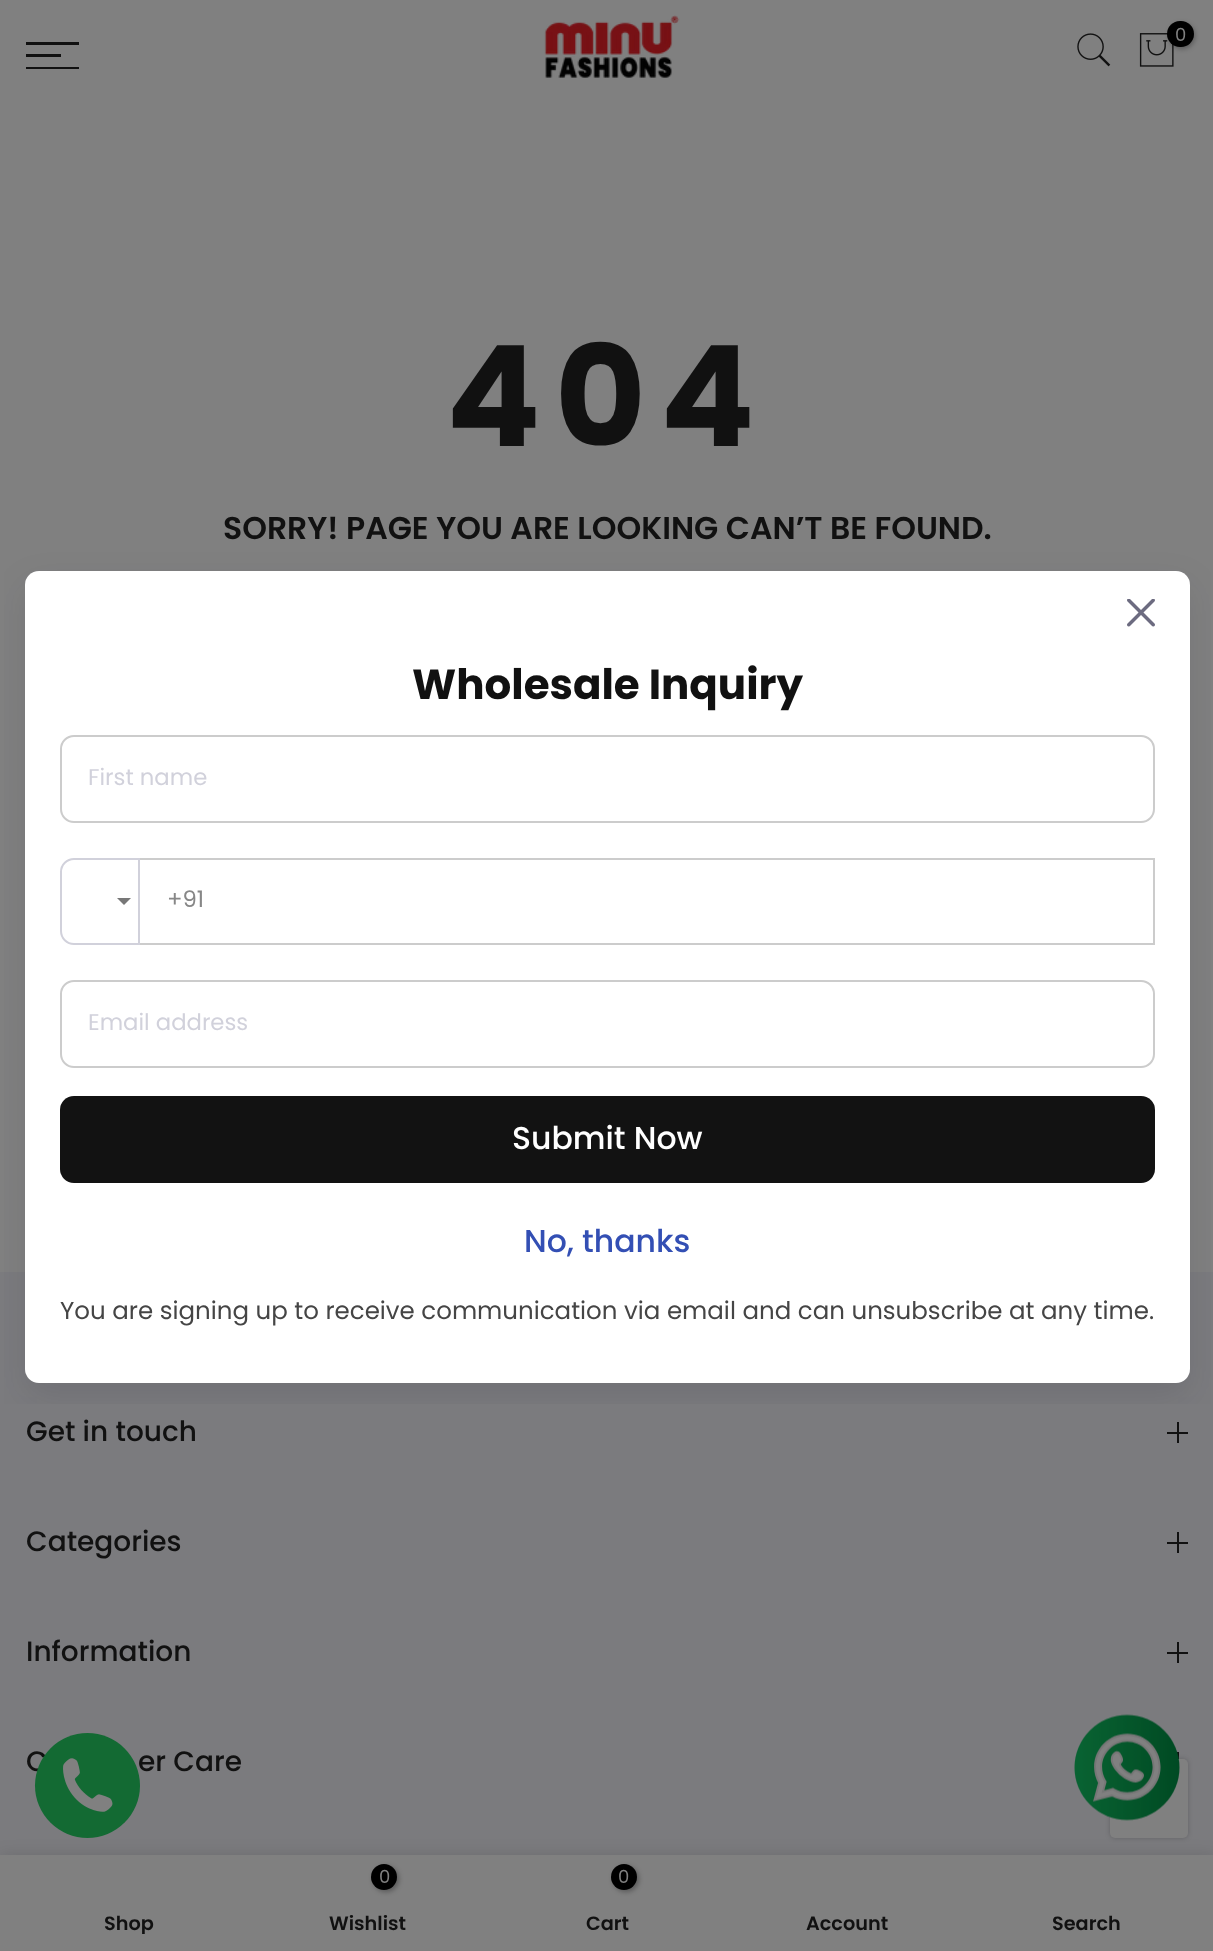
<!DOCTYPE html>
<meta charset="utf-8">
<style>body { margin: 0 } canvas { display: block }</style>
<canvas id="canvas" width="1213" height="1951"></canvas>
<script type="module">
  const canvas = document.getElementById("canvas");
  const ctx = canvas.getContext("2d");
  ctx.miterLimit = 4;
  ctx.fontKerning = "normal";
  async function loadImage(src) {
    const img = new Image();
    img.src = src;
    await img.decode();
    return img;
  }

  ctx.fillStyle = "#808080";
  ctx.fillRect(0, 0, 1213, 1951);
  ctx.drawImage(await loadImage("img1.png"), 544, 15, 136, 63);
  ctx.drawImage(await loadImage("img2.png"), 1077, 33, 34, 34);
  ctx.drawImage(await loadImage("img3.png"), 1139, 33, 35, 34);
  ctx.fillStyle = "rgba(0, 0, 0, 0.3)";
  ctx.filter = "blur(2.5px)";
  ctx.beginPath();
  ctx.roundRect(1169, 23, 26, 26, 13);
  ctx.fill();
  ctx.filter = "none";
  ctx.fillStyle = "#000000";
  ctx.beginPath();
  ctx.roundRect(1167, 21, 27, 26, 13);
  ctx.fill();
  ctx.font = "18px Poppins";
  ctx.fillStyle = "#808080";
  ctx.fillText("0", 1175, 41);
  ctx.fillStyle = "#111111";
  ctx.fillRect(26, 42, 53, 3);
  ctx.fillRect(26, 54, 35, 3);
  ctx.fillRect(26, 67, 53, 2);
  ctx.letterSpacing = "14px";
  ctx.font = "bold 140px Poppins";
  ctx.fillText("404", 446, 446);
  ctx.letterSpacing = "0px";
  ctx.font = "600 31.5px Poppins";
  ctx.fillText("SORRY! PAGE YOU ARE LOOKING CAN’T BE FOUND.", 223, 539);
  ctx.fillStyle = "#7b7b7e";
  ctx.fillRect(0, 1272, 1213, 583);
  ctx.font = "500 28px Poppins";
  ctx.fillStyle = "#111111";
  ctx.fillText("Get in touch", 26, 1441);
  ctx.fillRect(1177, 1422, 2, 21);
  ctx.fillRect(1167, 1432, 21, 2);
  ctx.fillText("Categories", 26, 1551);
  ctx.fillRect(1177, 1532, 2, 21);
  ctx.fillRect(1167, 1542, 21, 2);
  ctx.fillText("Information", 26, 1661);
  ctx.fillRect(1177, 1642, 2, 21);
  ctx.fillRect(1167, 1652, 21, 2);
  ctx.fillText("C", 26, 1771);
  ctx.fillText("er Care", 138, 1771);
  ctx.fillRect(1177, 1752, 2, 7);
  ctx.save();
  ctx.beginPath();
  ctx.rect(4, 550, 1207, 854);
  ctx.clip();
  ctx.fillStyle = "rgba(18, 17, 39, 0.1)";
  ctx.filter = "blur(17.5px)";
  ctx.beginPath();
  ctx.roundRect(25, 585, 1165, 812, 14);
  ctx.fill();
  ctx.filter = "none";
  ctx.restore();
  ctx.fillStyle = "#ffffff";
  ctx.beginPath();
  ctx.roundRect(25, 571, 1165, 812, 14);
  ctx.fill();
  ctx.drawImage(await loadImage("img4.png"), 1127, 599, 28, 28);
  ctx.font = "bold 42px Poppins";
  ctx.fillStyle = "#111111";
  ctx.fillText("Wholesale Inquiry", 412, 699);
  ctx.beginPath();
  ctx.roundRect(61, 736, 1093, 86, 13);
  ctx.strokeStyle = "#cccccc";
  ctx.lineWidth = 2;
  ctx.stroke();
  ctx.font = "22.75px Poppins";
  ctx.fillStyle = "#d1d1db";
  ctx.fillText("First name", 88, 785);
  ctx.strokeRect(139, 859, 1015, 85);
  ctx.fillStyle = "#ffffff";
  ctx.beginPath();
  ctx.roundRect(61, 859, 78, 85, [13, 0, 0, 13]);
  ctx.fill();
  ctx.strokeStyle = "#d1d1db";
  ctx.stroke();
  ctx.fillStyle = "#777777";
  ctx.beginPath();
  ctx.moveTo(117, 898);
  ctx.lineTo(131, 898);
  ctx.lineTo(124, 905);
  ctx.closePath();
  ctx.fill();
  ctx.fillStyle = "#878787";
  ctx.fillText("+91", 167, 907);
  ctx.beginPath();
  ctx.roundRect(61, 981, 1093, 86, 13);
  ctx.strokeStyle = "#cccccc";
  ctx.stroke();
  ctx.fillStyle = "#d1d1db";
  ctx.fillText("Email address", 88, 1030);
  ctx.fillStyle = "#121212";
  ctx.beginPath();
  ctx.roundRect(60, 1096, 1095, 87, 14);
  ctx.fill();
  ctx.font = "500 31.5px Poppins";
  ctx.fillStyle = "#ffffff";
  ctx.fillText("Submit Now", 512, 1149);
  ctx.fillStyle = "#334fb4";
  ctx.fillText("No, thanks", 524, 1252);
  ctx.font = "24.5px Poppins";
  ctx.fillStyle = "#454545";
  ctx.fillText("You are signing up to receive communication via email and can unsubscribe at any time.", 60, 1319);
  ctx.fillStyle = "rgba(0, 0, 0, 0.2)";
  ctx.filter = "blur(2.5px)";
  ctx.beginPath();
  ctx.roundRect(1110, 1759, 78, 79, 5);
  ctx.fill();
  ctx.filter = "none";
  ctx.fillStyle = "#808080";
  ctx.beginPath();
  ctx.roundRect(1110, 1759, 78, 79, 5);
  ctx.fill();
  ctx.fillStyle = "rgba(0, 0, 0, 0.12)";
  ctx.filter = "blur(8px)";
  ctx.beginPath();
  ctx.rect(0, 1855, 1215, 96);
  ctx.fill();
  ctx.filter = "none";
  ctx.fillStyle = "#136a33";
  ctx.beginPath();
  ctx.arc(87.5, 1785.5, 52.5, 0, Math.PI * 2);
  ctx.fill();
  ctx.drawImage(await loadImage("img5.png"), 63, 1758, 50, 54);
  ctx.drawImage(await loadImage("img6.png"), 1074, 1714, 106, 107);
  ctx.fillStyle = "#808080";
  ctx.fillRect(0, 1855, 1213, 96);
  ctx.save();
  ctx.beginPath();
  ctx.rect(26, 1915, 205, 19);
  ctx.clip();
  ctx.font = "600 19.25px Poppins";
  ctx.fillStyle = "#111111";
  ctx.fillText("Shop", 104, 1930);
  ctx.restore();
  ctx.fillStyle = "rgba(0, 0, 0, 0.3)";
  ctx.filter = "blur(2.5px)";
  ctx.beginPath();
  ctx.roundRect(373, 1866, 26, 26, 13);
  ctx.fill();
  ctx.filter = "none";
  ctx.fillStyle = "#000000";
  ctx.beginPath();
  ctx.arc(384, 1877, 13, 0, Math.PI * 2);
  ctx.fill();
  ctx.font = "18px Poppins";
  ctx.fillStyle = "#808080";
  ctx.fillText("0", 379, 1883);
  ctx.font = "600 19.25px Poppins";
  ctx.fillStyle = "#111111";
  ctx.fillText("Wishlist", 329, 1930);
  ctx.fillStyle = "rgba(0, 0, 0, 0.3)";
  ctx.filter = "blur(2.5px)";
  ctx.beginPath();
  ctx.roundRect(613, 1866, 26, 26, 13);
  ctx.fill();
  ctx.filter = "none";
  ctx.fillStyle = "#000000";
  ctx.beginPath();
  ctx.arc(624, 1877, 13, 0, Math.PI * 2);
  ctx.fill();
  ctx.font = "18px Poppins";
  ctx.fillStyle = "#808080";
  ctx.fillText("0", 618, 1883);
  ctx.font = "600 19.25px Poppins";
  ctx.fillStyle = "#111111";
  ctx.fillText("Cart", 586, 1930);
  ctx.fillText("Account", 806, 1930);
  ctx.fillText("Search", 1052, 1930);
</script>
